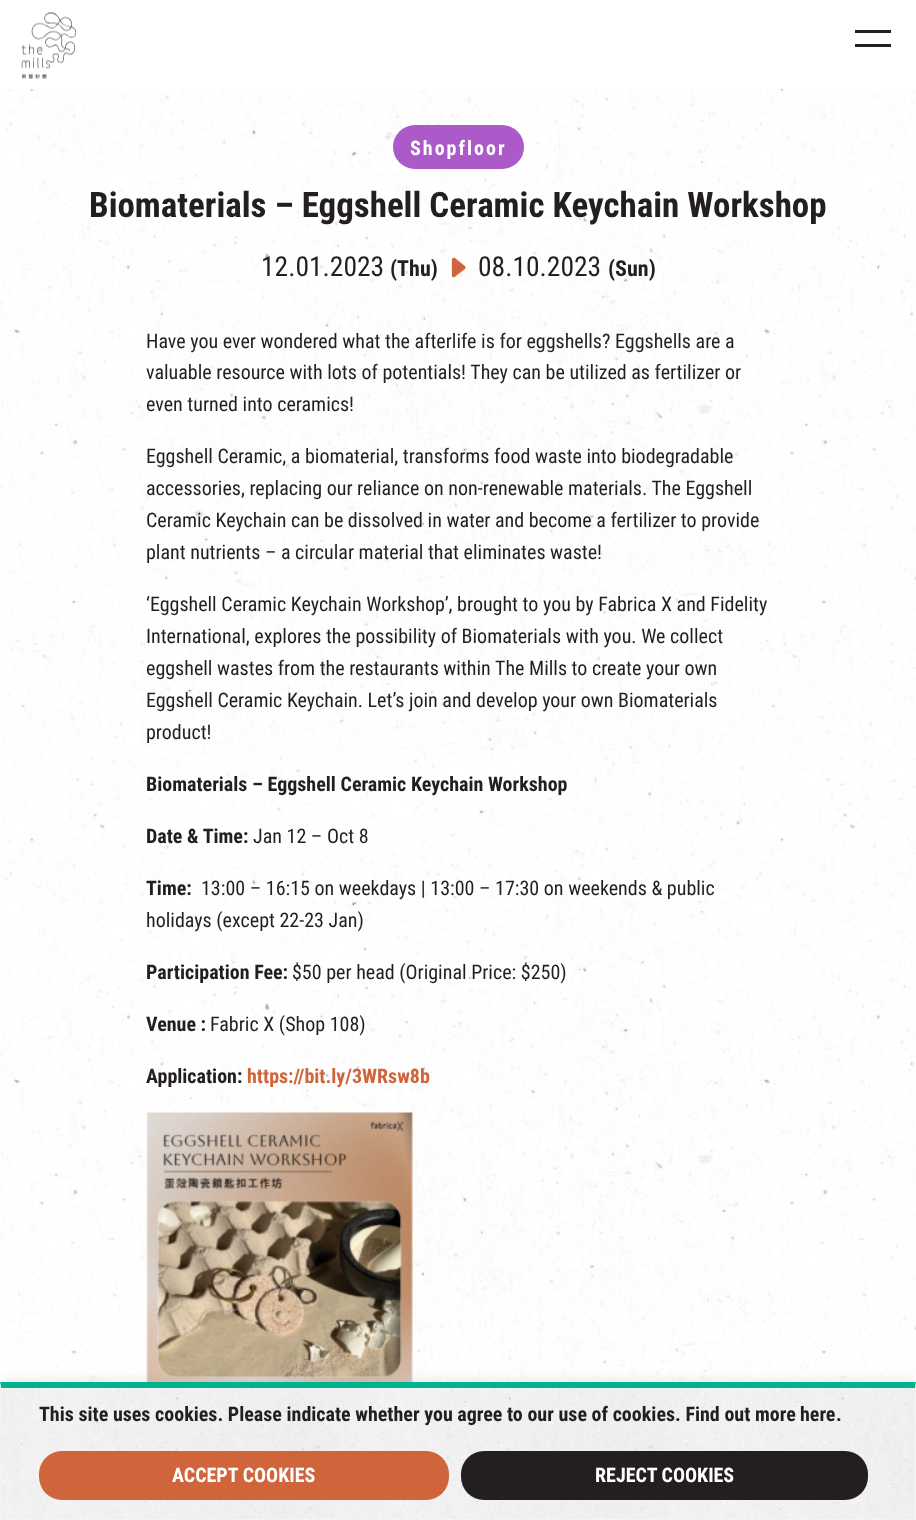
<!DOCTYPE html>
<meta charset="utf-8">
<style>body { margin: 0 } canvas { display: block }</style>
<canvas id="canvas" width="916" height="1520"></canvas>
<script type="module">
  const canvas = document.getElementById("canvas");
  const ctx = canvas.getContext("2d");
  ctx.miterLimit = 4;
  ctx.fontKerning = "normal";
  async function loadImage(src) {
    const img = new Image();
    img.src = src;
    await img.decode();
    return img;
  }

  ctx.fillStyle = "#ffffff";
  ctx.fillRect(0, 0, 916, 1520);
  ctx.drawImage(await loadImage("img1.png"), 0, 89, 916, 1430);
  ctx.drawImage(await loadImage("img2.png"), 21, 12, 55, 67);
  ctx.fillStyle = "#231f20";
  ctx.fillRect(855, 30, 36, 3);
  ctx.fillRect(855, 44, 36, 3);
  ctx.fillStyle = "#ac5ac9";
  ctx.beginPath();
  ctx.roundRect(393, 125, 131, 44, 22);
  ctx.fill();
  ctx.letterSpacing = "2px";
  ctx.font = "bold 20px Roboto Condensed";
  ctx.fillStyle = "#ffffff";
  ctx.fillText("Shopfloor", 410, 155);
  ctx.letterSpacing = "0px";
  ctx.font = "bold 35px Roboto Condensed";
  ctx.fillStyle = "#231f20";
  ctx.fillText("Biomaterials – Eggshell Ceramic Keychain Workshop", 89, 217);
  ctx.font = "27.5px Roboto Condensed";
  ctx.fillText("12.01.2023", 261, 276);
  ctx.font = "bold 22px Roboto Condensed";
  ctx.fillText("(Thu)", 390, 276);
  ctx.drawImage(await loadImage("img3.png"), 451, 257, 15, 21);
  ctx.font = "27.5px Roboto Condensed";
  ctx.fillText("08.10.2023", 478, 276);
  ctx.font = "bold 22px Roboto Condensed";
  ctx.fillText("(Sun)", 608, 276);
  ctx.font = "20px Roboto Condensed";
  ctx.fillText("Have you ever wondered what the afterlife is for eggshells? Eggshells are a", 146, 348);
  ctx.fillText("valuable resource with lots of potentials! They can be utilized as fertilizer or", 146, 379);
  ctx.fillText("even turned into ceramics!", 146, 411);
  ctx.fillText("Eggshell Ceramic, a biomaterial, transforms food waste into biodegradable", 146, 463);
  ctx.fillText("accessories, replacing our reliance on non-renewable materials. The Eggshell", 146, 495);
  ctx.fillText("Ceramic Keychain can be dissolved in water and become a fertilizer to provide", 146, 527);
  ctx.fillText("plant nutrients – a circular material that eliminates waste!", 146, 559);
  ctx.fillText("‘Eggshell Ceramic Keychain Workshop’, brought to you by Fabrica X and Fidelity", 146, 611);
  ctx.fillText("International, explores the possibility of Biomaterials with you. We collect", 146, 643);
  ctx.fillText("eggshell wastes from the restaurants within The Mills to create your own", 146, 675);
  ctx.fillText("Eggshell Ceramic Keychain. Let’s join and develop your own Biomaterials", 146, 707);
  ctx.fillText("product!", 146, 739);
  ctx.font = "bold 20px Roboto Condensed";
  ctx.fillText("Biomaterials – Eggshell Ceramic Keychain Workshop", 146, 791);
  ctx.fillText("Date & Time:", 146, 843);
  ctx.font = "20px Roboto Condensed";
  ctx.fillText("Jan 12 – Oct 8", 253, 843);
  ctx.font = "bold 20px Roboto Condensed";
  ctx.fillText("Time:", 146, 895);
  ctx.font = "20px Roboto Condensed";
  ctx.fillText("13:00 – 16:15 on weekdays | 13:00 – 17:30 on weekends & public", 201, 895);
  ctx.fillText("holidays (except 22-23 Jan)", 146, 927);
  ctx.font = "bold 20px Roboto Condensed";
  ctx.fillText("Participation Fee:", 146, 979);
  ctx.font = "20px Roboto Condensed";
  ctx.fillText("$50 per head (Original Price: $250)", 292, 979);
  ctx.font = "bold 20px Roboto Condensed";
  ctx.fillText("Venue :", 146, 1031);
  ctx.font = "20px Roboto Condensed";
  ctx.fillText("Fabric X (Shop 108)", 210, 1031);
  ctx.font = "bold 20px Roboto Condensed";
  ctx.fillText("Application:", 146, 1083);
  ctx.fillStyle = "#d0643b";
  ctx.fillText("https://bit.ly/3WRsw8b", 247, 1083);
  ctx.drawImage(await loadImage("img4.png"), 146, 1112, 267, 270);
  ctx.fillStyle = "rgba(172, 171, 171, 0.3)";
  ctx.filter = "blur(6px)";
  ctx.beginPath();
  ctx.rect(0, 1381, 916, 138);
  ctx.fill();
  ctx.filter = "none";
  ctx.drawImage(await loadImage("img5.png"), 1, 1388, 914, 131);
  ctx.fillStyle = "#00b28f";
  ctx.beginPath();
  ctx.moveTo(0, 1382);
  ctx.lineTo(916, 1382);
  ctx.lineTo(915, 1388);
  ctx.lineTo(1, 1388);
  ctx.closePath();
  ctx.fill();
  ctx.fillStyle = "#f4f4f4";
  ctx.beginPath();
  ctx.moveTo(916, 1382);
  ctx.lineTo(916, 1520);
  ctx.lineTo(915, 1519);
  ctx.lineTo(915, 1388);
  ctx.closePath();
  ctx.fill();
  ctx.fillRect(0, 1519, 916, 1);
  ctx.beginPath();
  ctx.moveTo(0, 1520);
  ctx.lineTo(0, 1382);
  ctx.lineTo(1, 1388);
  ctx.lineTo(1, 1519);
  ctx.closePath();
  ctx.fill();
  ctx.fillStyle = "#231f20";
  ctx.fillText("This site uses cookies. Please indicate whether you agree to our use of cookies. Find out more", 39, 1421);
  ctx.fillText("here", 800, 1421);
  ctx.fillText(".", 836, 1421);
  ctx.fillStyle = "#d0643b";
  ctx.beginPath();
  ctx.roundRect(39, 1451, 410, 49, 23);
  ctx.fill();
  ctx.fillStyle = "#ffffff";
  ctx.fillText("ACCEPT COOKIES", 172, 1482);
  ctx.fillStyle = "#231f20";
  ctx.beginPath();
  ctx.roundRect(461, 1451, 407, 49, 23);
  ctx.fill();
  ctx.fillStyle = "#ffffff";
  ctx.fillText("REJECT COOKIES", 595, 1482);
</script>
